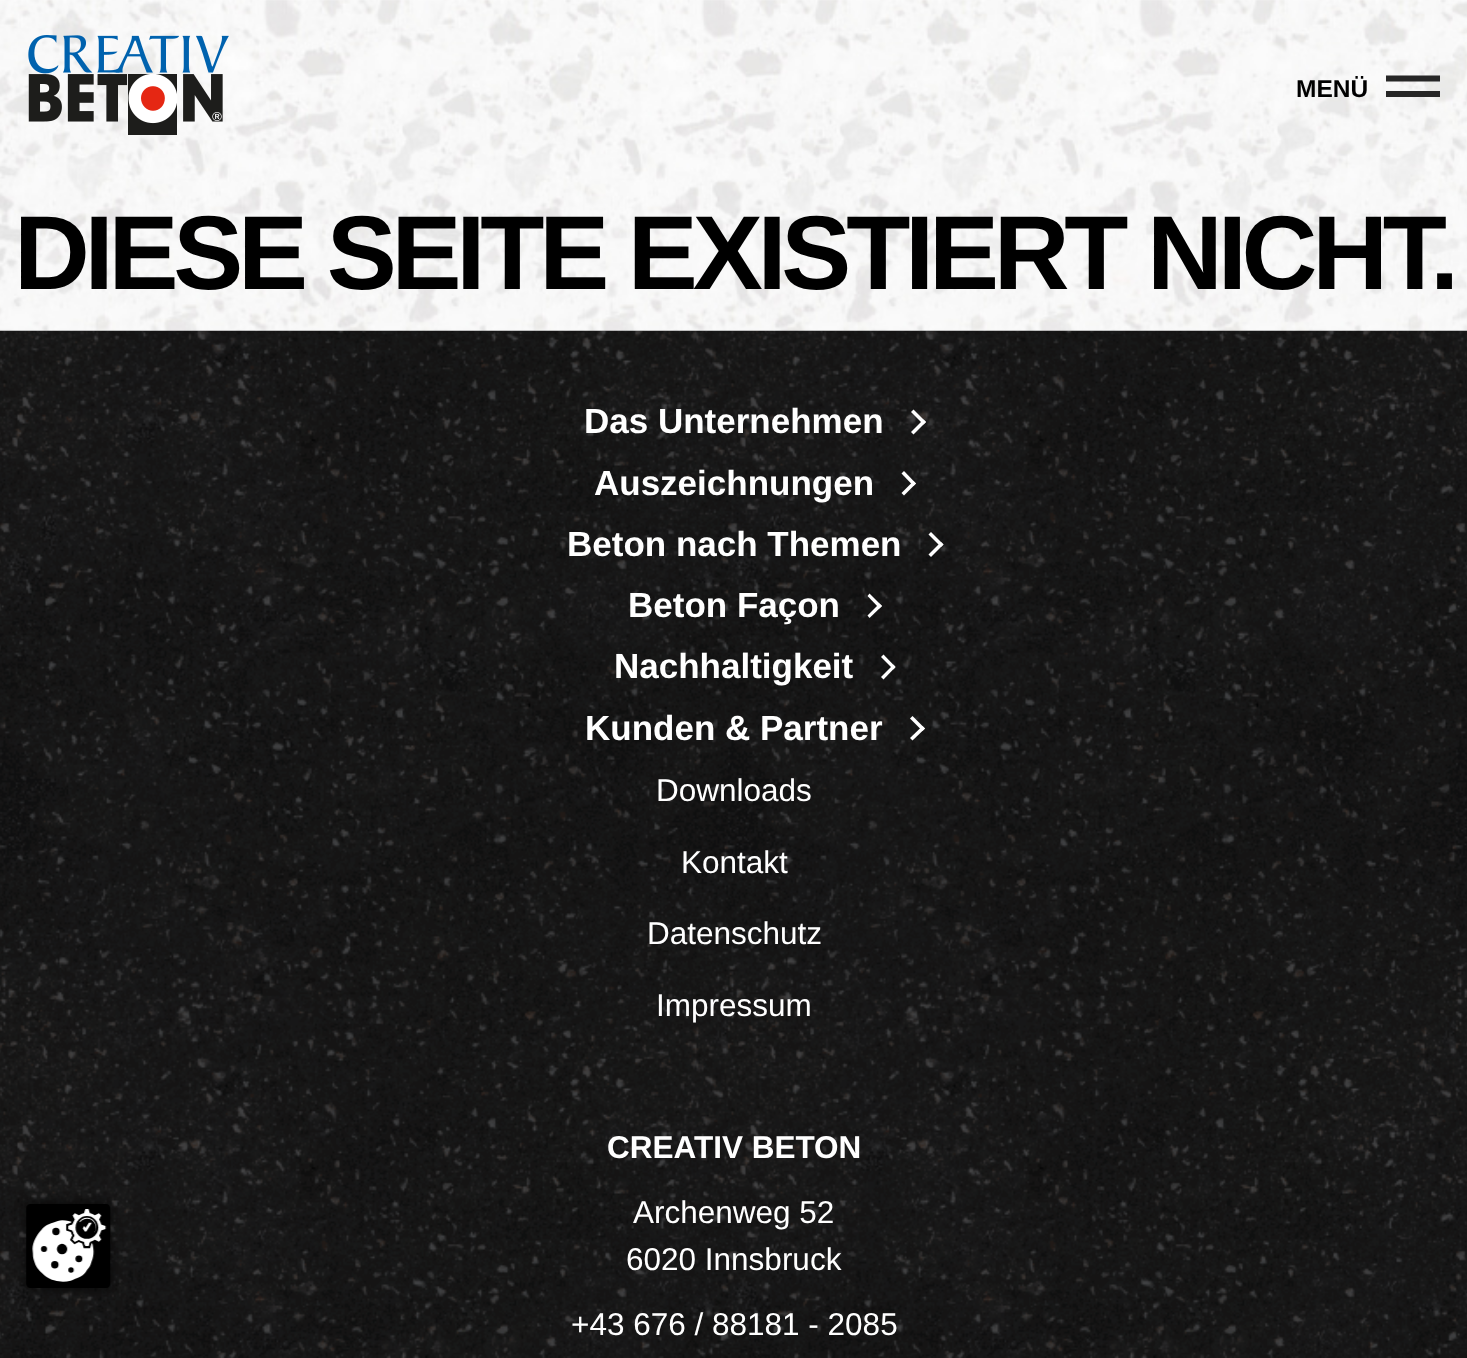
<!DOCTYPE html>
<meta charset="utf-8">
<style>body { margin: 0 } canvas { display: block }</style>
<canvas id="canvas" width="1467" height="1358"></canvas>
<script type="module">
  const canvas = document.getElementById("canvas");
  const ctx = canvas.getContext("2d");
  ctx.miterLimit = 4;
  ctx.fontKerning = "normal";
  async function loadImage(src) {
    const img = new Image();
    img.src = src;
    await img.decode();
    return img;
  }

  ctx.fillStyle = "#ffffff";
  ctx.fillRect(0, 0, 1467, 1358);
  ctx.drawImage(await loadImage("img1.png"), 0, 0, 1467, 331);
  ctx.drawImage(await loadImage("img2.png"), 28, 35, 201, 100);
  ctx.font = "bold 24.5px Liberation Sans";
  ctx.fillStyle = "#000000";
  ctx.fillText("MENÜ", 1296, 97);
  ctx.beginPath();
  ctx.moveTo(1386, 78.5);
  ctx.lineTo(1440, 78.5);
  ctx.strokeStyle = "#272727";
  ctx.lineWidth = 6.1;
  ctx.stroke();
  ctx.fillStyle = "#272727";
  ctx.fillRect(1386, 91, 54, 6);
  ctx.letterSpacing = "-5.25px";
  ctx.font = "bold 105px Liberation Sans";
  ctx.fillStyle = "#000000";
  ctx.fillText("DIESE SEITE EXISTIERT NICHT.", 14, 289);
  ctx.drawImage(await loadImage("img4.png"), 0, 330, 1467, 1028);
  ctx.fillStyle = "rgba(0, 0, 0, 0.5)";
  ctx.filter = "blur(5px)";
  ctx.beginPath();
  ctx.rect(25, 1202, 87, 88);
  ctx.fill();
  ctx.filter = "none";
  ctx.drawImage(await loadImage("img3.png"), 26, 1204, 85, 84);
  ctx.letterSpacing = "0px";
  ctx.font = "bold 35px Liberation Sans";
  ctx.fillStyle = "#ffffff";
  ctx.fillText("Das Unternehmen", 584, 433);
  ctx.beginPath();
  ctx.moveTo(913.5, 409.5);
  ctx.lineTo(926, 422);
  ctx.lineTo(923.5, 424.5);
  ctx.lineTo(911, 412);
  ctx.closePath();
  ctx.fill();
  ctx.beginPath();
  ctx.moveTo(923.5, 419.5);
  ctx.lineTo(926, 422);
  ctx.lineTo(913.5, 434.5);
  ctx.lineTo(911, 432);
  ctx.closePath();
  ctx.fill();
  ctx.fillText("Auszeichnungen", 594, 495);
  ctx.beginPath();
  ctx.moveTo(904, 471);
  ctx.lineTo(916, 483.5);
  ctx.lineTo(913.5, 486);
  ctx.lineTo(901.5, 473.5);
  ctx.closePath();
  ctx.fill();
  ctx.beginPath();
  ctx.moveTo(913.5, 481);
  ctx.lineTo(916, 483.5);
  ctx.lineTo(904, 495.5);
  ctx.lineTo(901.5, 493);
  ctx.closePath();
  ctx.fill();
  ctx.fillText("Beton nach Themen", 567, 556);
  ctx.beginPath();
  ctx.moveTo(931, 532);
  ctx.lineTo(943.5, 544.5);
  ctx.lineTo(941, 547);
  ctx.lineTo(928.5, 534.5);
  ctx.closePath();
  ctx.fill();
  ctx.beginPath();
  ctx.moveTo(941, 542);
  ctx.lineTo(943.5, 544.5);
  ctx.lineTo(931, 557);
  ctx.lineTo(928.5, 554.5);
  ctx.closePath();
  ctx.fill();
  ctx.fillText("Beton Façon", 628, 617);
  ctx.beginPath();
  ctx.moveTo(869.5, 593.5);
  ctx.lineTo(882, 606);
  ctx.lineTo(879.5, 608.5);
  ctx.lineTo(867.5, 596);
  ctx.closePath();
  ctx.fill();
  ctx.beginPath();
  ctx.moveTo(879.5, 603.5);
  ctx.lineTo(882, 606);
  ctx.lineTo(869.5, 618);
  ctx.lineTo(867.5, 615.5);
  ctx.closePath();
  ctx.fill();
  ctx.fillText("Nachhaltigkeit", 614, 678);
  ctx.beginPath();
  ctx.moveTo(883.5, 654.5);
  ctx.lineTo(895.5, 667);
  ctx.lineTo(893.5, 669.5);
  ctx.lineTo(881, 657);
  ctx.closePath();
  ctx.fill();
  ctx.beginPath();
  ctx.moveTo(893.5, 664.5);
  ctx.lineTo(895.5, 667);
  ctx.lineTo(883.5, 679.5);
  ctx.lineTo(881, 677);
  ctx.closePath();
  ctx.fill();
  ctx.fillText("Kunden & Partner", 585, 740);
  ctx.beginPath();
  ctx.moveTo(912.5, 716);
  ctx.lineTo(925, 728.5);
  ctx.lineTo(922.5, 731);
  ctx.lineTo(910, 718.5);
  ctx.closePath();
  ctx.fill();
  ctx.beginPath();
  ctx.moveTo(922.5, 726);
  ctx.lineTo(925, 728.5);
  ctx.lineTo(912.5, 740.5);
  ctx.lineTo(910, 738);
  ctx.closePath();
  ctx.fill();
  ctx.font = "31.5px Liberation Sans";
  ctx.fillText("Downloads", 656, 801);
  ctx.fillText("Kontakt", 681, 873);
  ctx.fillText("Datenschutz", 647, 944);
  ctx.fillText("Impressum", 656, 1016);
  ctx.font = "bold 31.5px Liberation Sans";
  ctx.fillText("CREATIV BETON", 607, 1158);
  ctx.font = "31.5px Liberation Sans";
  ctx.fillText("Archenweg 52", 633, 1223);
  ctx.fillText("6020 Innsbruck", 626, 1270);
  ctx.fillText("+43 676 / 88181 - 2085", 571, 1335);
</script>
